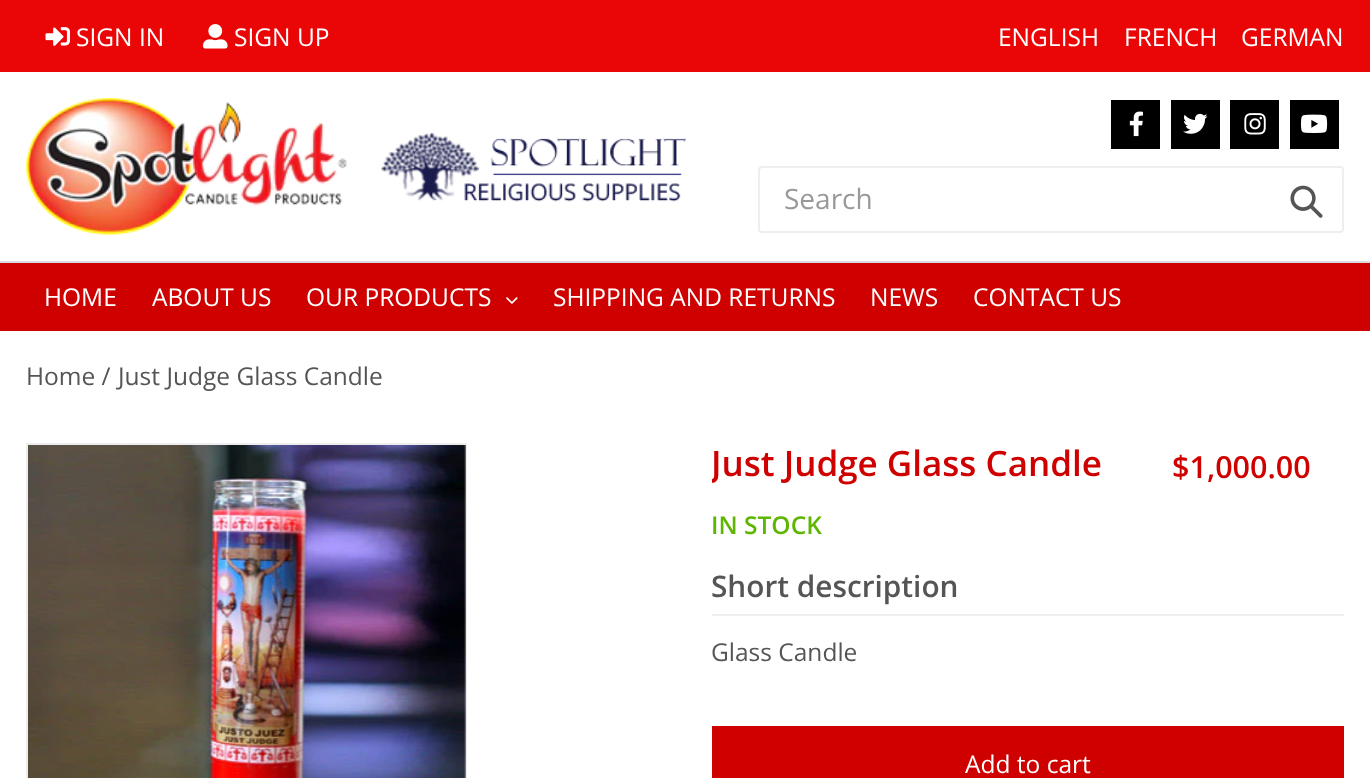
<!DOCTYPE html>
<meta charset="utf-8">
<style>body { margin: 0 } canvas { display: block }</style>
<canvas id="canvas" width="1370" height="778"></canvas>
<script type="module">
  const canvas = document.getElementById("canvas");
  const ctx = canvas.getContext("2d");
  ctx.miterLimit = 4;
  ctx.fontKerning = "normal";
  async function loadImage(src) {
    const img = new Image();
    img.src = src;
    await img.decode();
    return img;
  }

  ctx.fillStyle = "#ffffff";
  ctx.fillRect(0, 0, 1370, 778);
  ctx.fillStyle = "#ea0606";
  ctx.fillRect(0, 0, 1370, 72);
  ctx.drawImage(await loadImage("img1.png"), 45, 27, 25, 19);
  ctx.font = "24.5px Open Sans";
  ctx.fillStyle = "#ffffff";
  ctx.fillText("SIGN IN", 76, 46);
  ctx.drawImage(await loadImage("img2.png"), 203, 24, 25, 25);
  ctx.fillText("SIGN UP", 234, 46);
  ctx.fillText("ENGLISH", 998, 46);
  ctx.fillText("FRENCH", 1124, 46);
  ctx.fillText("GERMAN", 1241, 46);
  ctx.fillStyle = "#dddddd";
  ctx.fillRect(0, 261, 1370, 2);
  ctx.drawImage(await loadImage("img3.png"), 26, 98, 321, 137);
  ctx.drawImage(await loadImage("img4.png"), 381, 133, 305, 69);
  ctx.fillStyle = "#000000";
  ctx.fillRect(1111, 100, 49, 49);
  ctx.drawImage(await loadImage("img5.png"), 1129, 111, 14, 26);
  ctx.fillRect(1171, 100, 49, 49);
  ctx.drawImage(await loadImage("img6.png"), 1183, 113, 25, 21);
  ctx.fillRect(1230, 100, 49, 49);
  ctx.drawImage(await loadImage("img7.png"), 1244, 113, 22, 22);
  ctx.fillRect(1290, 100, 49, 49);
  ctx.drawImage(await loadImage("img8.png"), 1300, 114, 28, 19);
  ctx.beginPath();
  ctx.roundRect(759, 167, 584, 65, 3);
  ctx.strokeStyle = "#eeeeee";
  ctx.lineWidth = 2;
  ctx.stroke();
  ctx.font = "28px Open Sans";
  ctx.fillStyle = "#999999";
  ctx.fillText("Search", 784, 209);
  ctx.drawImage(await loadImage("img9.png"), 1290, 185, 33, 33);
  ctx.fillStyle = "#ce0000";
  ctx.fillRect(0, 263, 1370, 68);
  ctx.font = "24.5px Open Sans";
  ctx.fillStyle = "#ffffff";
  ctx.fillText("HOME", 44, 306);
  ctx.fillText("ABOUT US", 152, 306);
  ctx.fillText("OUR PRODUCTS", 306, 306);
  ctx.drawImage(await loadImage("img10.png"), 506, 297, 12, 7);
  ctx.fillText("SHIPPING AND RETURNS", 553, 306);
  ctx.fillText("NEWS", 870, 306);
  ctx.fillText("CONTACT US", 973, 306);
  ctx.fillStyle = "#555555";
  ctx.fillText("Home /", 26, 385);
  ctx.fillText("Just Judge Glass Candle", 118, 385);
  ctx.strokeStyle = "#ededed";
  ctx.strokeRect(27, 444, 439, 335);
  ctx.drawImage(await loadImage("img11.png"), 28, 445, 438, 333);
  ctx.save();
  ctx.beginPath();
  ctx.rect(712, 443, 632, 63);
  ctx.clip();
  ctx.font = "600 35px Open Sans";
  ctx.fillStyle = "#ce0000";
  ctx.fillText("Just Judge Glass Candle", 711, 476);
  ctx.restore();
  ctx.font = "600 30.5px Open Sans";
  ctx.fillStyle = "#ce0000";
  ctx.fillText("$1,000.00", 1172, 478);
  ctx.font = "600 24.5px Open Sans";
  ctx.fillStyle = "#5fb600";
  ctx.fillText("IN STOCK", 711, 534);
  ctx.fillStyle = "#eeeeee";
  ctx.fillRect(712, 614, 632, 2);
  ctx.font = "600 29.75px Open Sans";
  ctx.fillStyle = "#555555";
  ctx.fillText("Short description", 711, 597);
  ctx.font = "24.5px Open Sans";
  ctx.fillText("Glass Candle", 711, 661);
  ctx.fillStyle = "#ce0000";
  ctx.fillRect(712, 726, 632, 52);
  ctx.fillStyle = "#ffffff";
  ctx.fillText("Add to cart", 965, 773);
</script>
